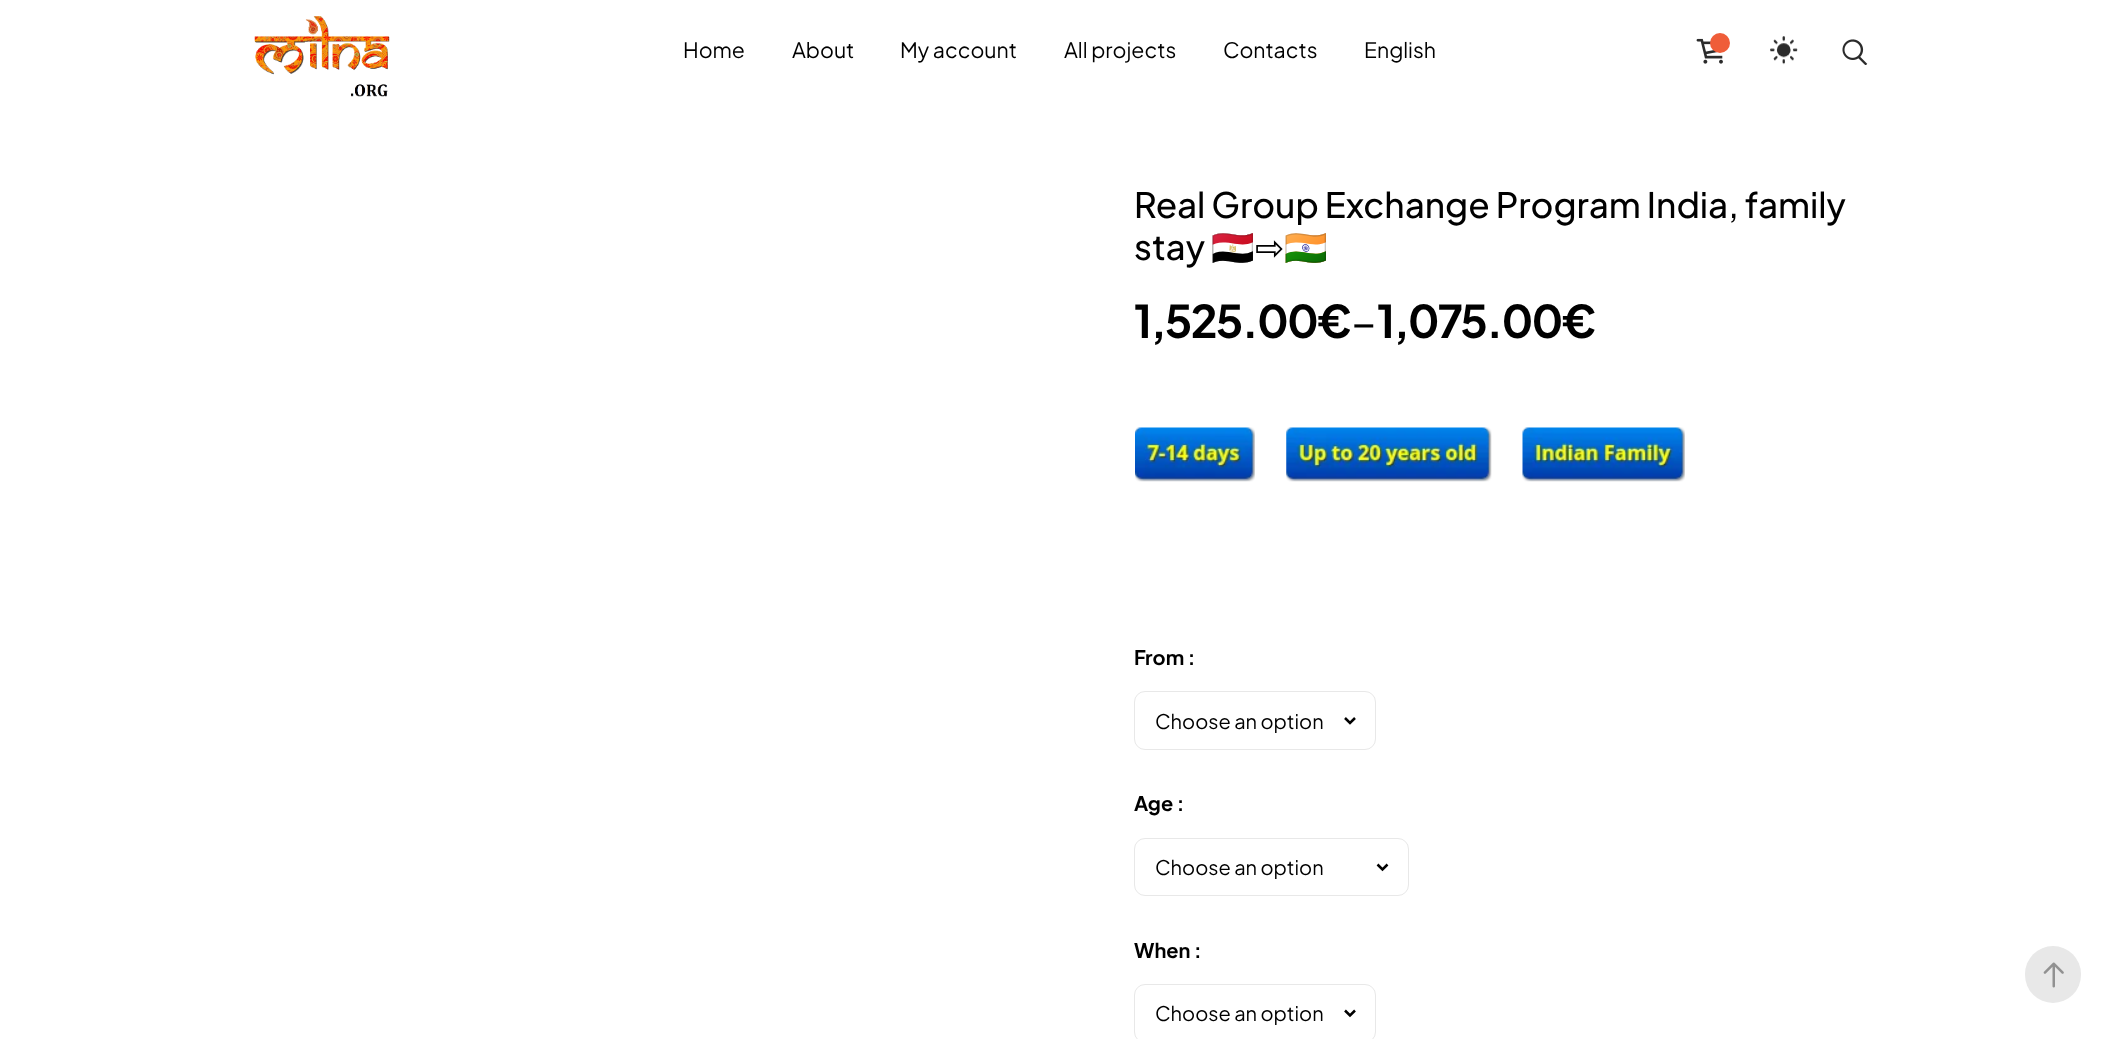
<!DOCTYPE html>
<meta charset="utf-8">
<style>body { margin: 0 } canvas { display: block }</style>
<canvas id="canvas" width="2118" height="1039"></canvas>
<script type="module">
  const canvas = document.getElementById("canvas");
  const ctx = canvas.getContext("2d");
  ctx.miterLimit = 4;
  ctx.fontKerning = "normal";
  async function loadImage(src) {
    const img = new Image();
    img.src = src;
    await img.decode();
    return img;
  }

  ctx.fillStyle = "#ffffff";
  ctx.fillRect(0, 0, 2118, 1039);
  ctx.drawImage(await loadImage("img1.png"), 254, 16, 136, 81);
  ctx.font = "21.25px Plus Jakarta Sans";
  ctx.fillStyle = "#000000";
  ctx.fillText("Home", 683, 58);
  ctx.fillText("About", 792, 58);
  ctx.fillText("My account", 900, 58);
  ctx.fillText("All projects", 1064, 58);
  ctx.fillText("Contacts", 1223, 58);
  ctx.fillText("English", 1364, 58);
  ctx.drawImage(await loadImage("img2.png"), 1696, 38, 27, 26);
  ctx.fillStyle = "#ef5d39";
  ctx.beginPath();
  ctx.arc(1720, 43, 10, 0, Math.PI * 2);
  ctx.fill();
  ctx.drawImage(await loadImage("img3.png"), 1770, 36, 28, 29);
  ctx.drawImage(await loadImage("img4.png"), 1842, 39, 26, 26);
  ctx.font = "500 35px Plus Jakarta Sans";
  ctx.fillStyle = "#000000";
  ctx.fillText("Real Group Exchange Program India, family", 1134, 218);
  ctx.fillText("stay", 1134, 260);
  ctx.font = "35px Noto Color Emoji";
  ctx.fillText("🇪🇬", 1211, 260);
  ctx.font = "35px DejaVu Sans";
  ctx.fillText("⇨", 1255, 260);
  ctx.font = "35px Noto Color Emoji";
  ctx.fillText("🇮🇳", 1284, 260);
  ctx.letterSpacing = "-1.75px";
  ctx.font = "bold 45px Plus Jakarta Sans";
  ctx.fillText("1,525.00€", 1134, 338);
  ctx.letterSpacing = "0px";
  ctx.font = "45px Plus Jakarta Sans";
  ctx.fillText("–", 1351, 338);
  ctx.letterSpacing = "-1.75px";
  ctx.font = "bold 45px Plus Jakarta Sans";
  ctx.fillText("1,075.00€", 1377, 338);
  ctx.drawImage(await loadImage("img5.png"), 1135, 427, 120, 55);
  ctx.drawImage(await loadImage("img6.png"), 1286, 427, 206, 55);
  ctx.drawImage(await loadImage("img7.png"), 1522, 427, 163, 55);
  ctx.letterSpacing = "0px";
  ctx.font = "bold 20px Plus Jakarta Sans";
  ctx.fillText("From :", 1134, 665);
  ctx.beginPath();
  ctx.moveTo(1345, 718);
  ctx.lineTo(1350, 723);
  ctx.lineTo(1355, 718);
  ctx.strokeStyle = "#000000";
  ctx.lineWidth = 2.5;
  ctx.stroke();
  ctx.beginPath();
  ctx.roundRect(1134.5, 691.5, 241, 58, 10.5);
  ctx.strokeStyle = "#e8e8e8";
  ctx.lineWidth = 1;
  ctx.stroke();
  ctx.font = "20px Plus Jakarta Sans";
  ctx.fillText("Choose an option", 1155, 729);
  ctx.font = "bold 20px Plus Jakarta Sans";
  ctx.fillText("Age :", 1134, 811);
  ctx.beginPath();
  ctx.moveTo(1377.5, 864.5);
  ctx.lineTo(1382.5, 869.5);
  ctx.lineTo(1387.5, 864.5);
  ctx.strokeStyle = "#000000";
  ctx.lineWidth = 2.5;
  ctx.stroke();
  ctx.beginPath();
  ctx.roundRect(1134.5, 838.5, 274, 57, 10.5);
  ctx.strokeStyle = "#e8e8e8";
  ctx.lineWidth = 1;
  ctx.stroke();
  ctx.font = "20px Plus Jakarta Sans";
  ctx.fillText("Choose an option", 1155, 875);
  ctx.font = "bold 20px Plus Jakarta Sans";
  ctx.fillText("When :", 1134, 958);
  ctx.beginPath();
  ctx.moveTo(1345, 1010.5);
  ctx.lineTo(1350, 1015.5);
  ctx.lineTo(1355, 1010.5);
  ctx.strokeStyle = "#000000";
  ctx.lineWidth = 2.5;
  ctx.stroke();
  ctx.beginPath();
  ctx.roundRect(1134.5, 984.5, 241, 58, 10.5);
  ctx.strokeStyle = "#e8e8e8";
  ctx.lineWidth = 1;
  ctx.stroke();
  ctx.font = "20px Plus Jakarta Sans";
  ctx.fillText("Choose an option", 1155, 1021);
  ctx.fillStyle = "#e8e8e8";
  ctx.beginPath();
  ctx.roundRect(2025, 946, 56, 57, 28);
  ctx.fill();
  ctx.drawImage(await loadImage("img8.png"), 2043, 962, 21, 26);
</script>
